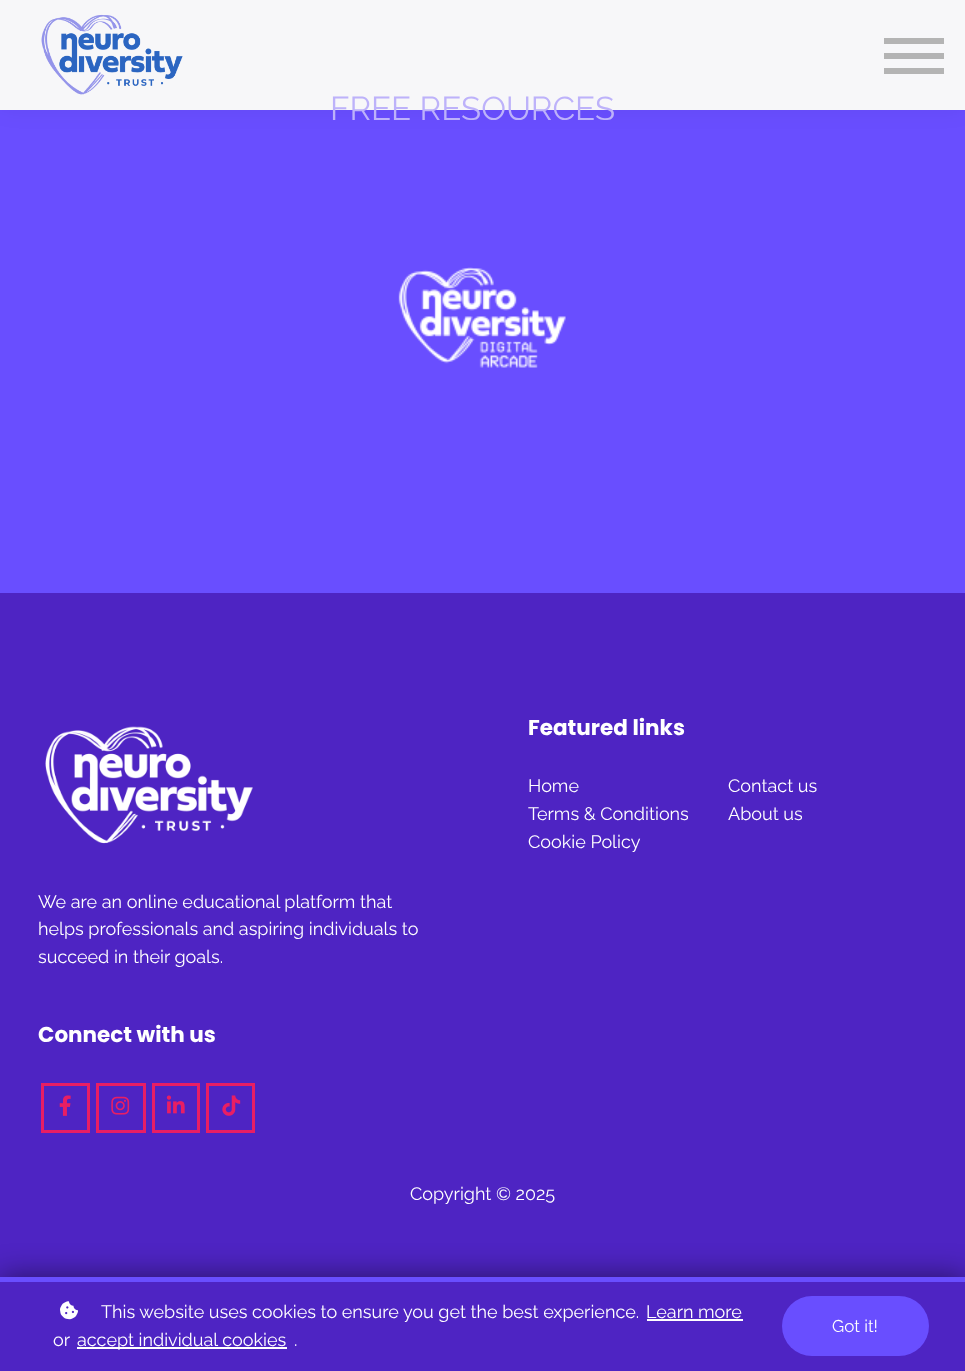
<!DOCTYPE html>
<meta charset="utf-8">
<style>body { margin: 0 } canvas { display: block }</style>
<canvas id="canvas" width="965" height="1371"></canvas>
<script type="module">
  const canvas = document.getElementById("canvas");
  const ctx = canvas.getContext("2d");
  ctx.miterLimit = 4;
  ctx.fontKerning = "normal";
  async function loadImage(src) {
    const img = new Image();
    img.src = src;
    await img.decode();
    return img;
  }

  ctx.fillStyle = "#694eff";
  ctx.fillRect(0, 0, 965, 1371);
  ctx.fillStyle = "rgba(0, 0, 0, 0.05)";
  ctx.filter = "blur(11px)";
  ctx.beginPath();
  ctx.rect(0, 0, 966, 110);
  ctx.fill();
  ctx.filter = "none";
  ctx.fillStyle = "#f7f7f9";
  ctx.fillRect(0, 0, 965, 110);
  ctx.drawImage(await loadImage("img1.png"), 41, 14, 142, 81);
  ctx.fillStyle = "#b4b4b4";
  ctx.fillRect(884, 68, 60, 6);
  ctx.fillRect(884, 38, 60, 6);
  ctx.fillRect(884, 53, 60, 6);
  ctx.save();
  ctx.beginPath();
  ctx.rect(0, 0, 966, 120);
  ctx.clip();
  ctx.font = "33px Raleway";
  ctx.fillStyle = "#bdb2fa";
  ctx.fillText("FREE RESOURCES", 330, 120);
  ctx.restore();
  ctx.drawImage(await loadImage("img2.png"), 398, 267, 168, 101);
  ctx.fillStyle = "#4e24c3";
  ctx.fillRect(0, 593, 965, 684);
  ctx.font = "bold 21.5px Poppins";
  ctx.fillStyle = "#ffffff";
  ctx.fillText("Featured links", 528, 735);
  ctx.font = "18px Raleway";
  ctx.fillText("Home", 528, 792);
  ctx.fillText("Contact us", 728, 792);
  ctx.fillText("Terms & Conditions", 528, 820);
  ctx.fillText("About us", 728, 820);
  ctx.fillText("Cookie Policy", 528, 848);
  ctx.drawImage(await loadImage("img3.png"), 45, 726, 208, 118);
  ctx.fillText("We are an online educational platform that", 38, 908);
  ctx.fillText("helps professionals and aspiring individuals to", 38, 935);
  ctx.fillText("succeed in their goals.", 38, 963);
  ctx.font = "bold 21.5px Poppins";
  ctx.fillText("Connect with us", 38, 1042);
  ctx.strokeStyle = "#e91e63";
  ctx.lineWidth = 3;
  ctx.strokeRect(42.5, 1084.5, 46, 47);
  ctx.drawImage(await loadImage("img4.png"), 59, 1095, 12, 21);
  ctx.strokeRect(97.5, 1084.5, 47, 47);
  ctx.drawImage(await loadImage("img5.png"), 111, 1096, 19, 19);
  ctx.strokeRect(153.5, 1084.5, 45, 47);
  ctx.drawImage(await loadImage("img6.png"), 166, 1095, 19, 19);
  ctx.strokeRect(207.5, 1084.5, 46, 47);
  ctx.drawImage(await loadImage("img7.png"), 222, 1095, 19, 21);
  ctx.font = "18px Raleway";
  ctx.fillText("Copyright © 2025", 410, 1200);
  ctx.fillStyle = "rgba(0, 0, 0, 0.5)";
  ctx.filter = "blur(15px)";
  ctx.beginPath();
  ctx.rect(0, 1277, 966, 94);
  ctx.fill();
  ctx.filter = "none";
  ctx.fillStyle = "#4e24c3";
  ctx.fillRect(0, 1282, 965, 89);
  ctx.fillStyle = "#694eff";
  ctx.fillRect(0, 1277, 965, 5);
  ctx.drawImage(await loadImage("img8.png"), 60, 1301, 18, 19);
  ctx.fillStyle = "#ffffff";
  ctx.fillText("This website uses cookies to ensure you get the best experience.", 101, 1318);
  ctx.fillText("Learn more", 646, 1318);
  ctx.fillRect(647, 1319, 96, 2);
  ctx.fillText("or", 53, 1346);
  ctx.fillRect(77, 1347, 210, 2);
  ctx.fillText("accept individual cookies", 77, 1346);
  ctx.fillText(".", 294, 1346);
  ctx.fillStyle = "#694eff";
  ctx.beginPath();
  ctx.roundRect(782, 1296, 147, 60, 30);
  ctx.fill();
  ctx.font = "17px Raleway";
  ctx.fillStyle = "#ffffff";
  ctx.fillText("Got it!", 832, 1332);
</script>
